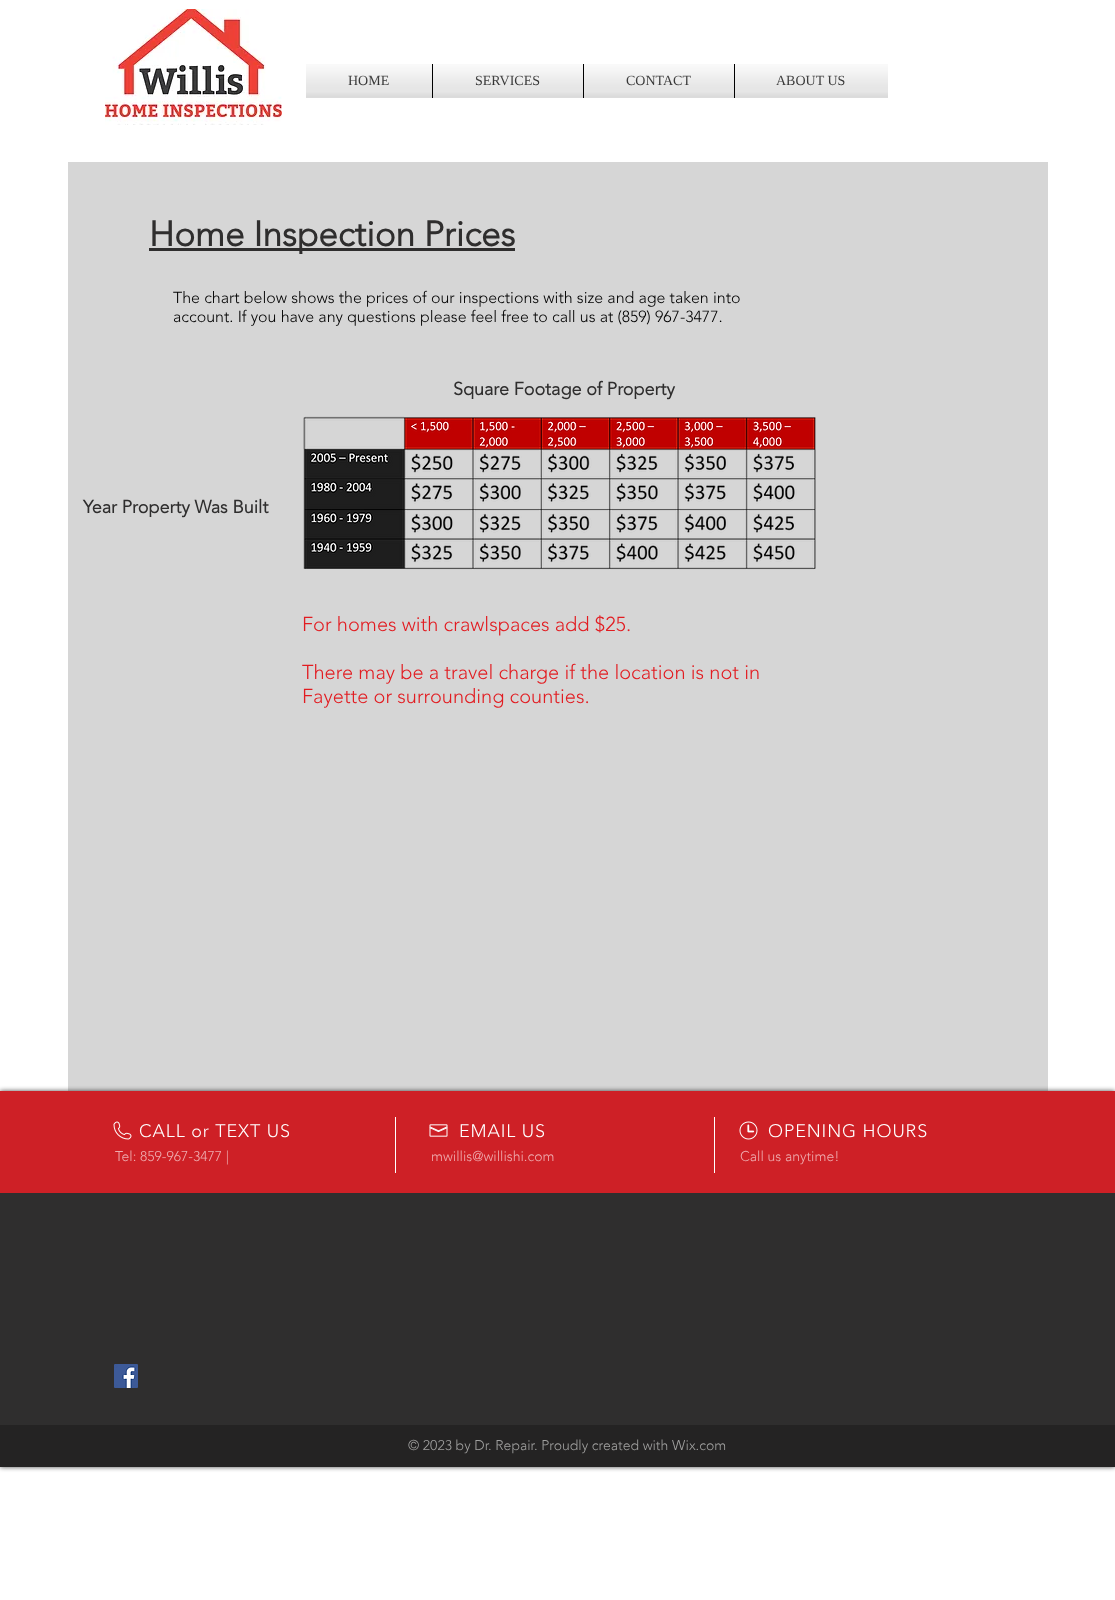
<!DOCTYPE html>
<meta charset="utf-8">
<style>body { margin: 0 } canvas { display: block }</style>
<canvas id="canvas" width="1115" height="1600"></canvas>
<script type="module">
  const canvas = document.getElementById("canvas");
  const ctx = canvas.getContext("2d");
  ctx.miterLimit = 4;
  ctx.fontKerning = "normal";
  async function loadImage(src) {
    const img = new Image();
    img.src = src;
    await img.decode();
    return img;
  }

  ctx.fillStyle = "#ffffff";
  ctx.fillRect(0, 0, 1115, 1600);
  ctx.drawImage(await loadImage("img1.png"), 105, 9, 177, 116);
  ctx.font = "14px Liberation Serif";
  ctx.fillStyle = "#000000";
  ctx.fillText("HOME", 348, 85);
  ctx.drawImage(await loadImage("img2.png"), 348, 75, 41, 11);
  ctx.drawImage(await loadImage("img3.png"), 306, 64, 126, 34);
  ctx.fillRect(432, 64, 1, 34);
  ctx.fillText("SERVICES", 475, 85);
  ctx.drawImage(await loadImage("img4.png"), 476, 75, 63, 11);
  ctx.drawImage(await loadImage("img5.png"), 433, 64, 150, 34);
  ctx.fillRect(583, 64, 1, 34);
  ctx.fillText("CONTACT", 626, 85);
  ctx.drawImage(await loadImage("img6.png"), 626, 75, 65, 11);
  ctx.drawImage(await loadImage("img7.png"), 584, 64, 150, 34);
  ctx.fillRect(734, 64, 1, 34);
  ctx.fillText("ABOUT US", 776, 85);
  ctx.drawImage(await loadImage("img8.png"), 776, 75, 69, 11);
  ctx.drawImage(await loadImage("img9.png"), 735, 64, 153, 34);
  ctx.fillStyle = "#d6d6d6";
  ctx.fillRect(68, 162, 980, 929);
  ctx.fillStyle = "#2f2e2e";
  ctx.fillRect(149, 248, 366, 3);
  ctx.font = "bold 35px 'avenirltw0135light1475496'";
  ctx.fillText("Home Inspection Prices", 149, 246);
  ctx.font = "300 16px 'avenirltw0135light1475496'";
  ctx.fillStyle = "#000000";
  ctx.fillText("The chart below shows the prices of our inspections with size and age taken into", 173, 303);
  ctx.fillText("account. If you have any questions please feel free to call us at (859) 967-3477.", 173, 322);
  ctx.font = "bold 18px 'avenirltw0135light1475496'";
  ctx.fillStyle = "#2f2e2e";
  ctx.fillText("Square Footage of Property", 453, 395);
  ctx.fillText("Year Property Was Built", 83, 513);
  ctx.drawImage(await loadImage("img10.png"), 303, 416, 513, 154);
  ctx.font = "300 20px 'avenirltw0135light1475496'";
  ctx.fillStyle = "#e21c21";
  ctx.fillText("For homes with crawlspaces add $25.", 302, 631);
  ctx.fillText("There may be a travel charge if the location is not in", 302, 679);
  ctx.fillText("Fayette or surrounding counties.", 302, 703);
  ctx.fillStyle = "rgba(0, 0, 0, 0.7)";
  ctx.filter = "blur(2.5px)";
  ctx.beginPath();
  ctx.rect(0, 1091, 1115, 376);
  ctx.fill();
  ctx.filter = "none";
  ctx.fillStyle = "#2f2e2e";
  ctx.fillRect(0, 1193, 1115, 232);
  ctx.fillStyle = "#ce2026";
  ctx.fillRect(0, 1091, 1115, 102);
  ctx.drawImage(await loadImage("img11.png"), 113, 1121, 19, 19);
  ctx.letterSpacing = "0.9px";
  ctx.font = "300 18px 'avenirltw0135light1475496'";
  ctx.fillStyle = "#ffffff";
  ctx.fillText("CALL or TEXT US", 139, 1137);
  ctx.fillRect(395, 1117, 1, 56);
  ctx.drawImage(await loadImage("img12.png"), 429, 1124, 19, 13);
  ctx.fillText("EMAIL US", 459, 1137);
  ctx.fillRect(714, 1117, 1, 56);
  ctx.drawImage(await loadImage("img13.png"), 739, 1121, 19, 19);
  ctx.fillText("OPENING HOURS", 768, 1137);
  ctx.letterSpacing = "0px";
  ctx.font = "300 14px 'avenirltw0135light1475496'";
  ctx.fillStyle = "#efabae";
  ctx.fillText("Tel: 859-967-3477 |", 115, 1161);
  ctx.fillText("mwillis@willishi.com", 431, 1161);
  ctx.fillText("Call us anytime!", 740, 1161);
  ctx.drawImage(await loadImage("img14.png"), 114, 1364, 24, 24);
  ctx.fillStyle = "#242323";
  ctx.fillRect(0, 1425, 1115, 42);
  ctx.fillStyle = "#a0a09f";
  ctx.fillText("© 2023 by Dr. Repair. Proudly created with Wix.com", 408, 1450);
</script>
